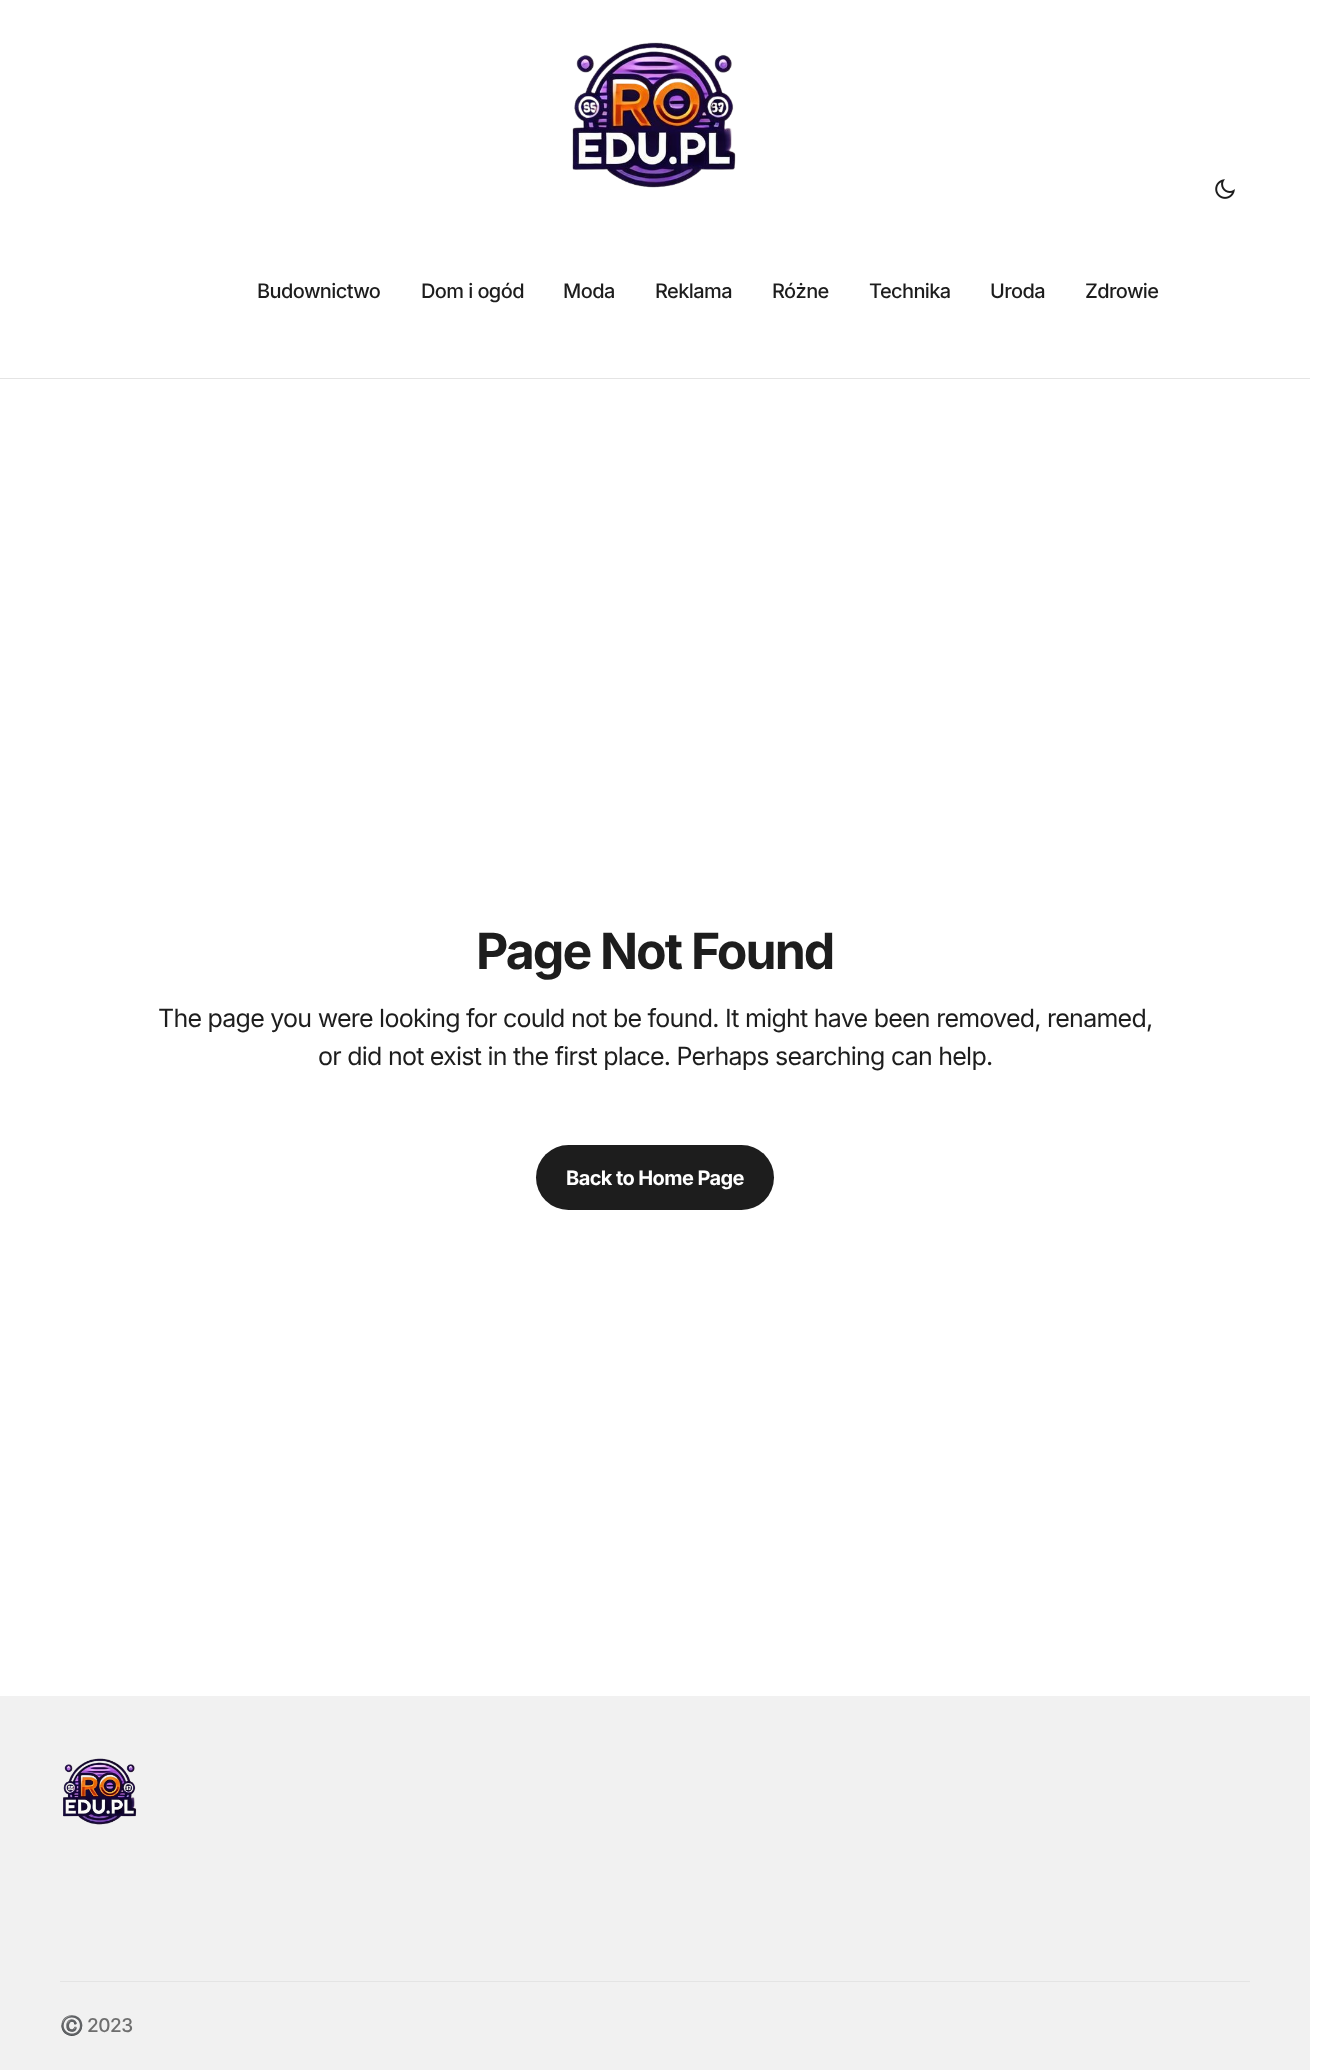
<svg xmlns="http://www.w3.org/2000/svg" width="1328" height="2070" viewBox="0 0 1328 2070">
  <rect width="100%" height="100%" fill="rgb(255,255,255)"/>
  <image x="572" y="42" width="164" height="146" href="pic1.png"/>
  <image x="1215" y="179" width="20" height="20" href="pic2.png"/>
  <g font-family="Inter" font-size="20" font-weight="500" letter-spacing="-0.6" fill="rgb(29,29,29)">
    <text x="257" y="298">Budownictwo</text>
    <text x="421" y="298">Dom i ogód</text>
    <text x="563" y="298">Moda</text>
    <text x="655" y="298">Reklama</text>
    <text x="772" y="298">Różne</text>
    <text x="869" y="298">Technika</text>
    <text x="990" y="298">Uroda</text>
    <text x="1085" y="298">Zdrowie</text>
  </g>
  <rect x="0" y="378" width="1310" height="1" fill="rgb(228,228,228)"/>
  <text x="476" y="969" font-family="Inter" font-size="50" font-weight="bold" letter-spacing="-2" fill="rgb(29,29,29)">Page Not Found</text>
  <g font-family="Inter" font-size="25" letter-spacing="-0.75" fill="rgb(29,29,29)">
    <text x="158" y="1027">The page you were looking for could not be found. It might have been removed, renamed,</text>
    <text x="318" y="1065">or did not exist in the first place. Perhaps searching can help.</text>
  </g>
  <rect x="536" y="1145" width="238" height="65" rx="32.5" fill="rgb(29,29,29)"/>
  <text x="566" y="1185" font-family="Inter" font-size="20" font-weight="bold" letter-spacing="-0.6" fill="rgb(255,255,255)">Back to Home Page</text>
  <rect x="0" y="1696" width="1310" height="374" fill="rgb(241,241,241)"/>
  <image x="63" y="1758" width="74" height="67" href="pic3.png"/>
  <rect x="60" y="1981" width="1190" height="1" fill="rgb(228,228,228)"/>
  <text x="60" y="2032" font-family="Noto Color Emoji" font-size="19" letter-spacing="-0.5" fill="rgb(110,110,110)">©️</text>
  <text x="87" y="2032" font-family="Inter" font-size="19" font-weight="500" letter-spacing="-0.5" fill="rgb(110,110,110)">2023</text>
</svg>
